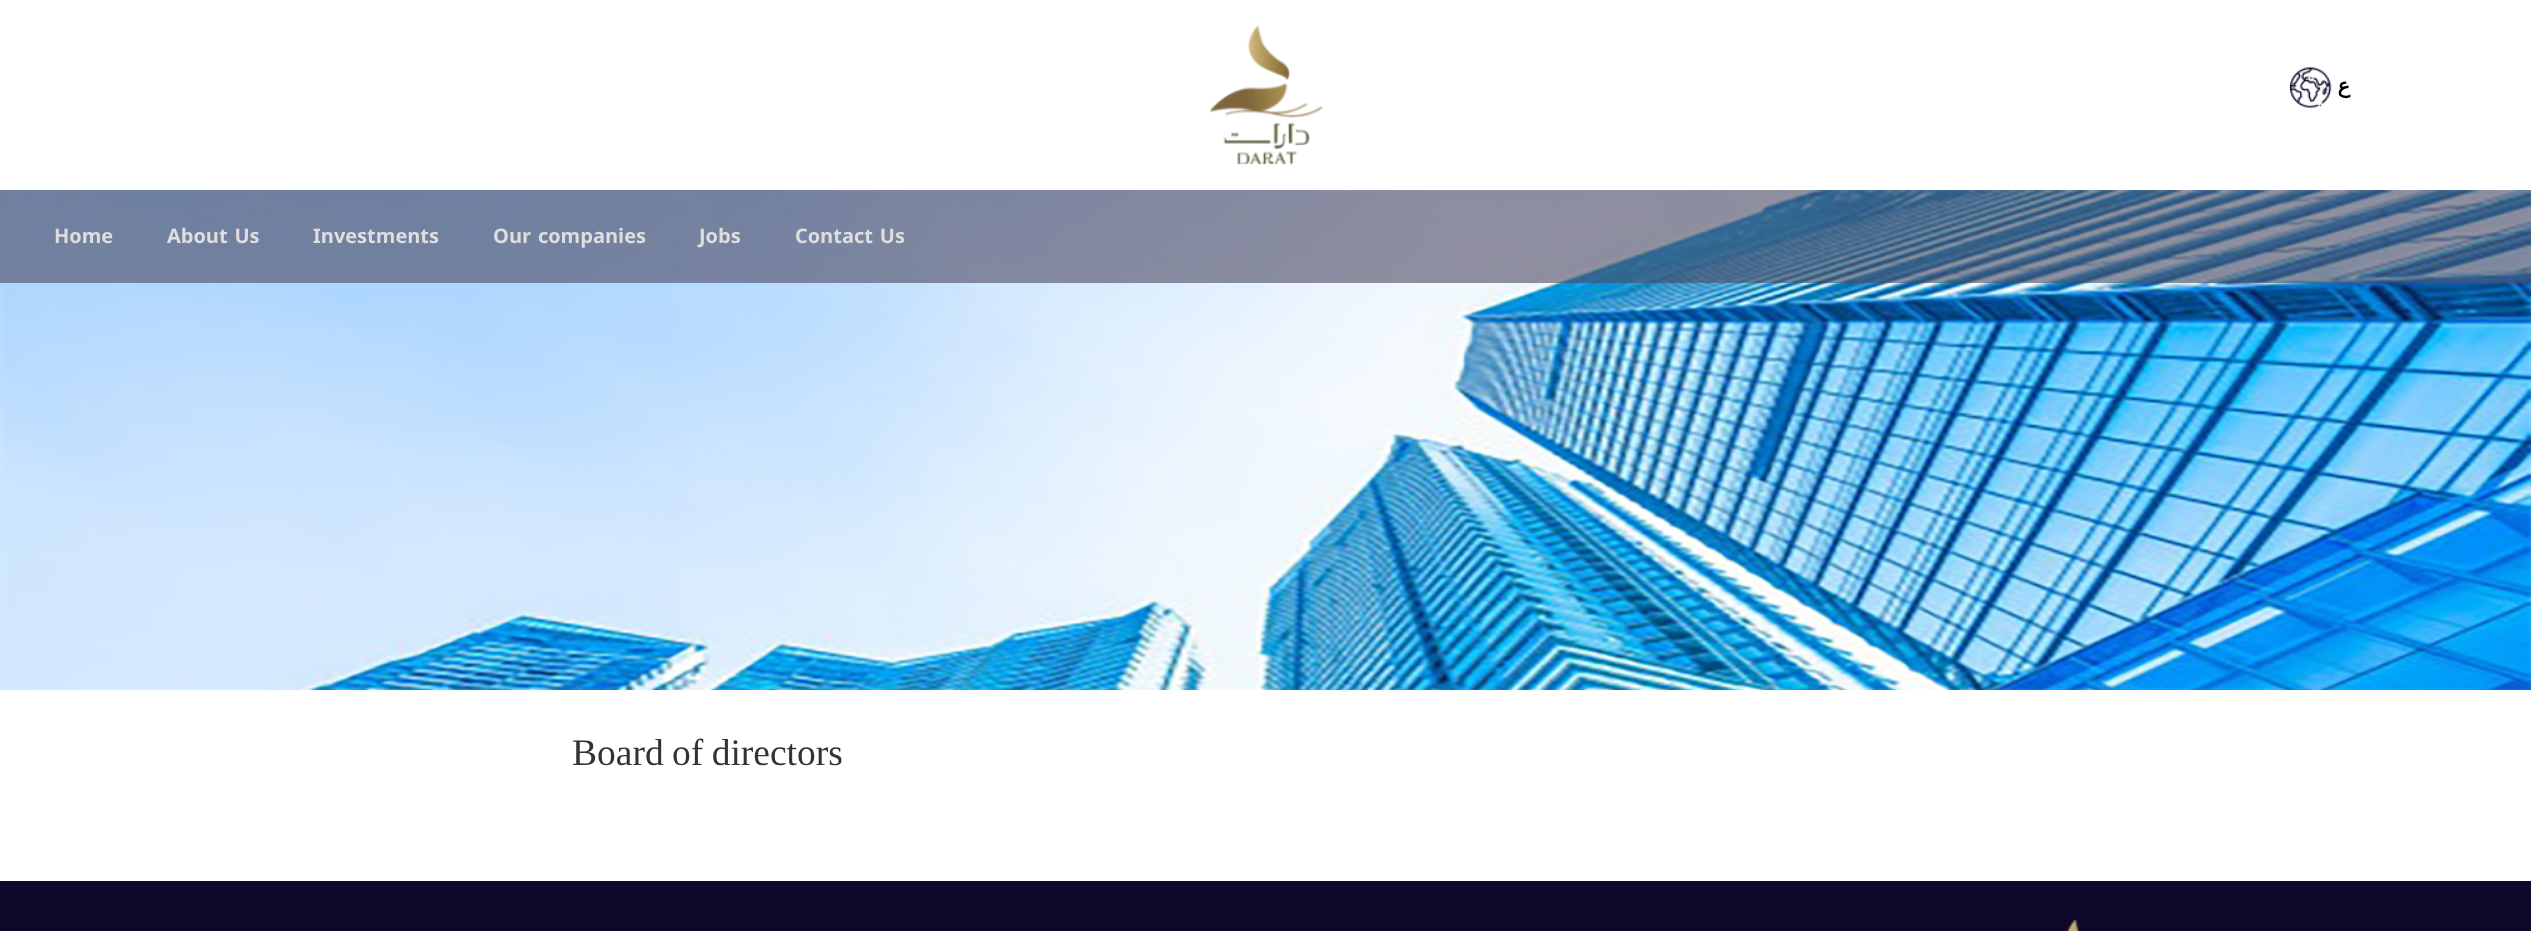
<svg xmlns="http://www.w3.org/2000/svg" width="2531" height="931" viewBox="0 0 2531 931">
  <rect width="100%" height="100%" fill="rgb(255,255,255)"/>
  <image x="1210" y="26" width="113" height="139" href="pic1.png"/>
  <image x="2290" y="67" width="42" height="41" href="pic2.png"/>
  <text x="2350" y="93" font-family="DejaVu Sans" font-size="21" font-weight="bold" direction="rtl" fill="rgb(0,0,0)">ع</text>
  <image x="0" y="190" width="2531" height="500" href="pic3.png"/>
  <rect x="0" y="190" width="2531" height="93" fill="rgba(78,76,99,0.61)"/>
  <g font-family="Noto Kufi Arabic" font-size="20" font-weight="bold" fill="rgb(222,222,222)">
    <text x="54" y="243">Home</text>
    <text x="167" y="243">About Us</text>
    <text x="313" y="243">Investments</text>
    <text x="493" y="243">Our companies</text>
    <text x="699" y="243">Jobs</text>
    <text x="795" y="243">Contact Us</text>
  </g>
  <text x="572" y="765" word-spacing="-1" font-family="Liberation Serif" font-size="37.5" fill="rgb(51,51,51)">Board of directors</text>
  <rect x="0" y="881" width="2531" height="50" fill="rgb(14,9,43)"/>
  <image x="2066" y="919" width="14" height="12" href="pic4.png"/>
</svg>
